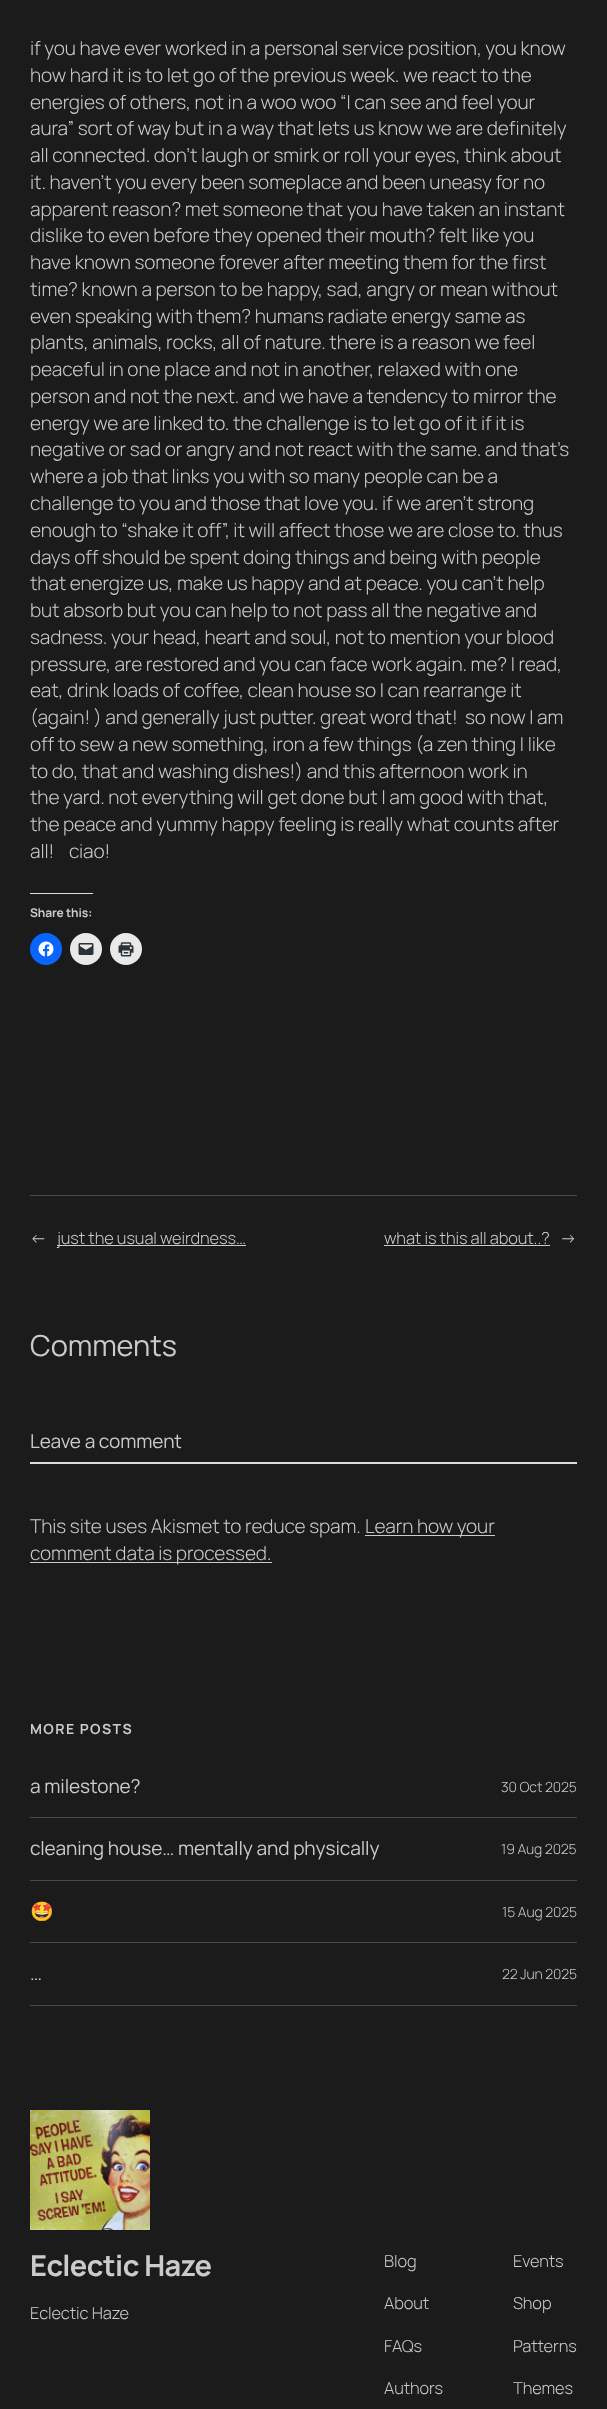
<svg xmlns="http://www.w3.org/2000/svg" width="607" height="2409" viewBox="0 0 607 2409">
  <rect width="100%" height="100%" fill="rgb(27,27,27)"/>
  <g font-family="Manrope" font-size="19.1" font-weight="300" letter-spacing="-0.1" fill="rgb(203,203,203)">
    <text xml:space="preserve"><tspan x="30" y="55">if you have ever worked in a personal service position, you know</tspan><tspan x="30" y="82">how hard it is to let go of the previous week. we react to the</tspan><tspan x="30" y="109">energies of others, not in a woo woo “I can see and feel your</tspan><tspan x="30" y="135">aura” sort of way but in a way that lets us know we are definitely</tspan><tspan x="30" y="162">all connected. don’t laugh or smirk or roll your eyes, think about</tspan><tspan x="30" y="189">it. haven’t you every been someplace and been uneasy for no</tspan><tspan x="30" y="216">apparent reason? met someone that you have taken an instant</tspan><tspan x="30" y="242">dislike to even before they opened their mouth? felt like you</tspan><tspan x="30" y="269">have known someone forever after meeting them for the first</tspan><tspan x="30" y="296">time? known a person to be happy, sad, angry or mean without</tspan><tspan x="30" y="323">even speaking with them? humans radiate energy same as</tspan><tspan x="30" y="349">plants, animals, rocks, all of nature. there is a reason we feel</tspan><tspan x="30" y="376">peaceful in one place and not in another, relaxed with one</tspan><tspan x="30" y="403">person and not the next. and we have a tendency to mirror the</tspan><tspan x="30" y="430">energy we are linked to. the challenge is to let go of it if it is</tspan><tspan x="30" y="456">negative or sad or angry and not react with the same. and that’s</tspan><tspan x="30" y="483">where a job that links you with so many people can be a</tspan><tspan x="30" y="510">challenge to you and those that love you. if we aren’t strong</tspan><tspan x="30" y="537">enough to “shake it off”, it will affect those we are close to. thus</tspan><tspan x="30" y="564">days off should be spent doing things and being with people</tspan><tspan x="30" y="590">that energize us, make us happy and at peace. you can’t help</tspan><tspan x="30" y="617">but absorb but you can help to not pass all the negative and</tspan><tspan x="30" y="644">sadness. your head, heart and soul, not to mention your blood</tspan><tspan x="30" y="671">pressure, are restored and you can face work again. me? I read,</tspan><tspan x="30" y="697">eat, drink loads of coffee, clean house so I can rearrange it</tspan><tspan x="30" y="724">(again! ) and generally just putter. great word that!  so now I am</tspan><tspan x="30" y="751">off to sew a new something, iron a few things (a zen thing I like</tspan><tspan x="30" y="778">to do, that and washing dishes!) and this afternoon work in</tspan><tspan x="30" y="804">the yard. not everything will get done but I am good with that,</tspan><tspan x="30" y="831">the peace and yummy happy feeling is really what counts after</tspan><tspan x="30" y="858">all!    ciao!</tspan></text>
  </g>
  <rect x="30" y="893" width="63" height="1" fill="rgb(220,220,222)"/>
  <text x="30" y="917" font-family="Manrope" font-size="12" font-weight="bold" letter-spacing="-0.1" fill="rgb(203,203,203)">Share this:</text>
  <circle cx="46" cy="949" r="16" fill="rgb(8,102,255)"/>
  <image x="38" y="941" width="16" height="16" href="pic1.png"/>
  <circle cx="86" cy="949" r="16" fill="rgb(233,233,233)"/>
  <image x="78" y="943" width="16" height="12" href="pic2.png"/>
  <circle cx="126" cy="949" r="16" fill="rgb(233,233,233)"/>
  <image x="118" y="942" width="16" height="15" href="pic3.png"/>
  <rect x="30" y="1195" width="547" height="1" fill="rgb(73,73,73)"/>
  <text x="30" y="1244" font-family="Manrope" font-size="16.5" font-weight="300" letter-spacing="-0.1" fill="rgb(203,203,203)">←</text>
  <rect x="57" y="1245" width="189" height="1" fill="rgb(203,203,203)"/>
  <g font-family="Manrope" font-size="16.5" font-weight="300" letter-spacing="-0.1" fill="rgb(203,203,203)">
    <text x="57" y="1244">just the usual weirdness…</text>
    <text x="384" y="1244">what is this all about..?</text>
  </g>
  <rect x="384" y="1245" width="166" height="1" fill="rgb(203,203,203)"/>
  <text x="560" y="1244" font-family="Manrope" font-size="16.5" font-weight="300" letter-spacing="-0.1" fill="rgb(203,203,203)">→</text>
  <text x="30" y="1356" font-family="Manrope" font-size="29" letter-spacing="-0.1" fill="rgb(203,203,203)">Comments</text>
  <text x="30" y="1448" font-family="Manrope" font-size="19.1" letter-spacing="-0.1" fill="rgb(203,203,203)">Leave a comment</text>
  <rect x="30" y="1462" width="547" height="2" fill="rgb(220,220,222)"/>
  <text x="30" y="1533" font-family="Manrope" font-size="19.1" font-weight="300" letter-spacing="-0.1" fill="rgb(203,203,203)">This site uses Akismet to reduce spam.</text>
  <rect x="365" y="1535" width="130" height="1" fill="rgb(203,203,203)"/>
  <text x="365" y="1533" font-family="Manrope" font-size="19.1" font-weight="300" letter-spacing="-0.1" fill="rgb(203,203,203)">Learn how your</text>
  <rect x="30" y="1562" width="242" height="1" fill="rgb(203,203,203)"/>
  <text x="30" y="1560" font-family="Manrope" font-size="19.1" font-weight="300" letter-spacing="-0.1" fill="rgb(203,203,203)">comment data is processed.</text>
  <text x="30" y="1734" font-family="Manrope" font-size="14" font-weight="bold" letter-spacing="1.4" fill="rgb(203,203,203)">MORE POSTS</text>
  <rect x="30" y="1817" width="547" height="1" fill="rgb(73,73,73)"/>
  <text x="30" y="1793" font-family="Manrope" font-size="19.1" letter-spacing="-0.1" fill="rgb(203,203,203)">a milestone?</text>
  <text x="501" y="1792" font-family="Manrope" font-size="14" font-weight="300" letter-spacing="-0.1" fill="rgb(203,203,203)">30 Oct 2025</text>
  <rect x="30" y="1880" width="547" height="1" fill="rgb(73,73,73)"/>
  <text x="30" y="1855" font-family="Manrope" font-size="19.1" letter-spacing="-0.1" fill="rgb(203,203,203)">cleaning house… mentally and physically</text>
  <text x="501" y="1854" font-family="Manrope" font-size="14" font-weight="300" letter-spacing="-0.1" fill="rgb(203,203,203)">19 Aug 2025</text>
  <rect x="30" y="1942" width="547" height="1" fill="rgb(73,73,73)"/>
  <text x="30" y="1918" font-family="Noto Color Emoji" font-size="19.1" letter-spacing="-0.1" fill="rgb(203,203,203)">🤩</text>
  <text x="502" y="1917" font-family="Manrope" font-size="14" font-weight="300" letter-spacing="-0.1" fill="rgb(203,203,203)">15 Aug 2025</text>
  <rect x="30" y="2005" width="547" height="1" fill="rgb(73,73,73)"/>
  <text x="30" y="1980" font-family="Manrope" font-size="19.1" letter-spacing="-0.1" fill="rgb(203,203,203)">…</text>
  <text x="502" y="1979" font-family="Manrope" font-size="14" font-weight="300" letter-spacing="-0.1" fill="rgb(203,203,203)">22 Jun 2025</text>
  <image x="30" y="2110" width="120" height="120" href="pic4.png"/>
  <text x="30" y="2276" font-family="Manrope" font-size="29" font-weight="bold" letter-spacing="-0.5" fill="rgb(203,203,203)">Eclectic Haze</text>
  <g font-family="Manrope" font-size="16.5" font-weight="300" letter-spacing="-0.1" fill="rgb(203,203,203)">
    <text x="30" y="2319">Eclectic Haze</text>
    <text x="384" y="2267">Blog</text>
    <text x="384" y="2309">About</text>
    <text x="384" y="2352">FAQs</text>
    <text x="384" y="2394">Authors</text>
    <text x="513" y="2267">Events</text>
    <text x="513" y="2309">Shop</text>
    <text x="513" y="2352">Patterns</text>
    <text x="513" y="2394">Themes</text>
  </g>
</svg>
